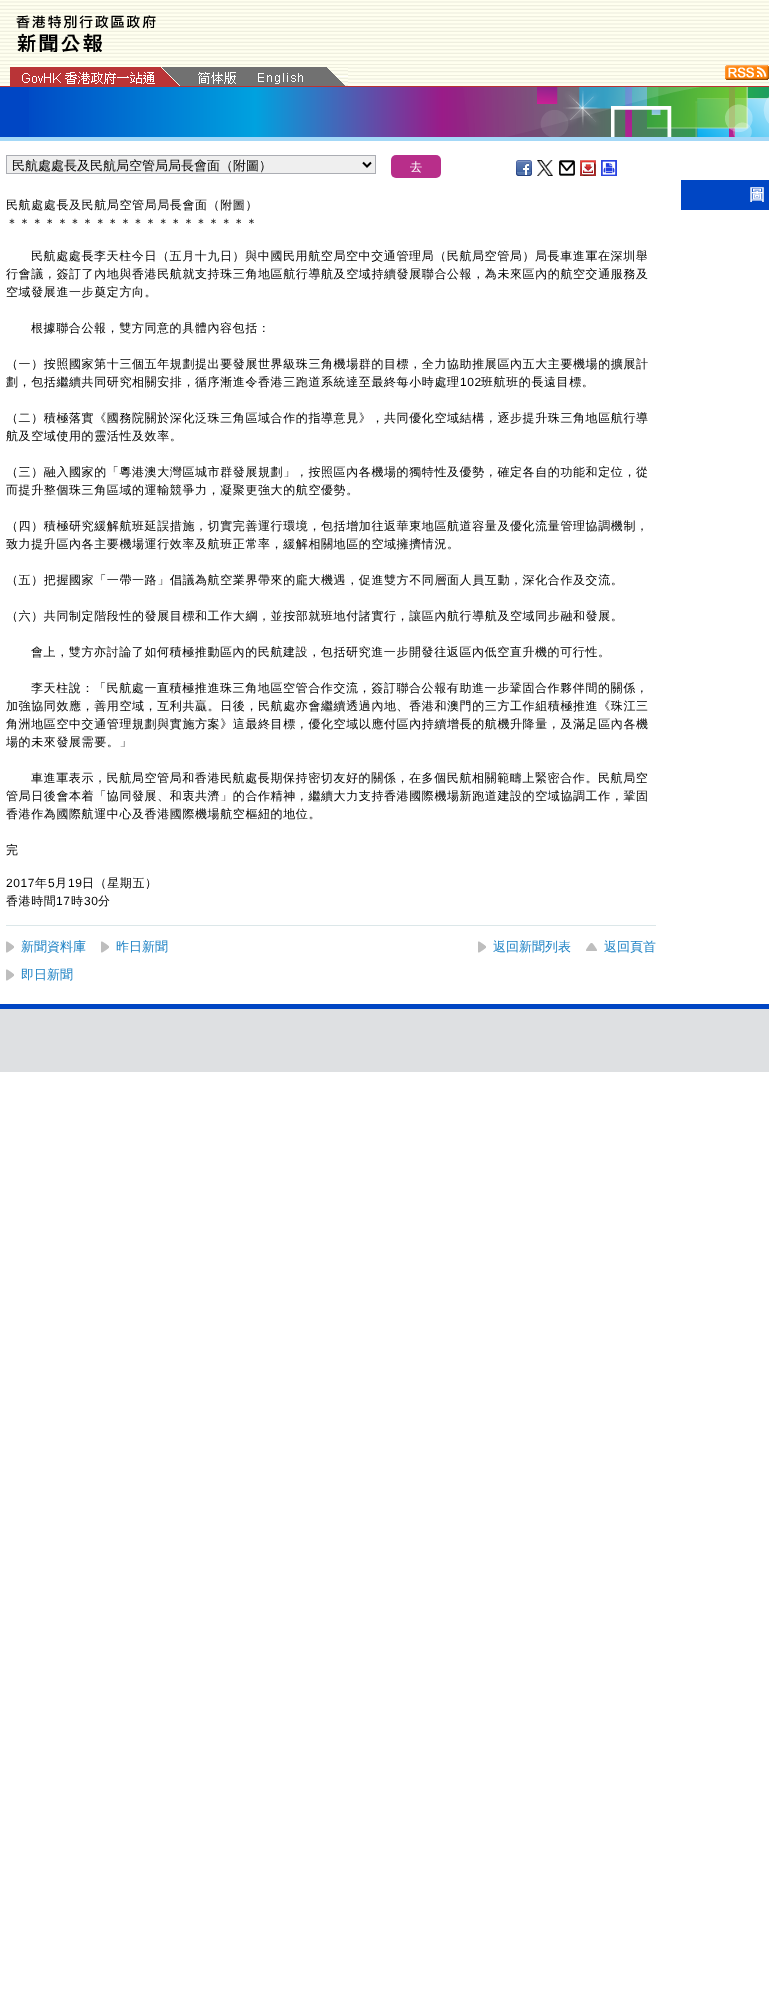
<svg xmlns="http://www.w3.org/2000/svg" width="769" height="1993" viewBox="0 0 769 1993">
  <rect width="100%" height="100%" fill="rgb(255,255,255)"/>
  <image x="0" y="0" width="769" height="86" href="pic1.png"/>
  <rect x="0" y="86" width="769" height="1" fill="rgb(187,51,51)"/>
  <image x="16" y="15" width="140" height="37" href="pic2.png"/>
  <rect x="180" y="67" width="147" height="19" fill="rgb(113,113,113)"/>
  <image x="10" y="67" width="170" height="19" href="pic3.png"/>
  <image x="22" y="72" width="133" height="12" href="pic4.png"/>
  <image x="198" y="72" width="38" height="12" href="pic5.png"/>
  <image x="327" y="67" width="21" height="19" href="pic6.png"/>
  <image x="258" y="73" width="45" height="11" href="pic7.png"/>
  <image x="725" y="65" width="44" height="15" href="pic8.png"/>
  <rect x="0" y="87" width="29" height="50" fill="rgb(0,70,196)"/>
  <image x="29" y="87" width="740" height="50" href="pic9.png"/>
  <rect x="0" y="137" width="769" height="4" fill="rgb(163,216,247)"/>
  <rect x="0" y="1004" width="769" height="5" fill="rgb(0,70,196)"/>
  <rect x="6.5" y="155.5" width="369" height="18" fill="rgb(239,239,239)" stroke="rgb(171,173,179)"/>
  <path d="M363 162.5L367 166.5L371 162.5" fill="none" stroke="rgb(0,0,0)" stroke-width="2"/>
  <text x="12" y="170" font-family="WenQuanYi Zen Hei" font-size="13" font-weight="500" fill="rgb(0,0,0)">民航處處長及民航局空管局局長會面（附圖）</text>
  <rect x="391" y="155" width="50" height="23" rx="5" fill="rgb(184,46,138)"/>
  <text x="410" y="171" font-family="WenQuanYi Zen Hei" font-size="12" font-weight="500" fill="rgb(255,255,255)">去</text>
  <image x="516" y="160" width="16" height="16" href="pic10.png"/>
  <image x="537" y="160" width="16" height="16" href="pic11.png"/>
  <image x="559" y="160" width="16" height="16" href="pic12.png"/>
  <image x="580" y="160" width="16" height="16" href="pic13.png"/>
  <image x="601" y="160" width="16" height="16" href="pic14.png"/>
  <g font-family="WenQuanYi Zen Hei" font-size="12" font-weight="500" letter-spacing="0.6" fill="rgb(0,0,0)">
    <text>
      <tspan x="6" y="209">民航處處長及民航局空管局局長會面（附圖）</tspan>
      <tspan x="6" y="227">＊＊＊＊＊＊＊＊＊＊＊＊＊＊＊＊＊＊＊＊</tspan>
    </text>
    <text x="31" y="260">民航處處長李天柱今日（五月十九日）與中國民用航空局空中交通管理局（民航局空管局）局長車進軍在深圳舉</text>
    <text>
      <tspan x="6" y="278">行會議，簽訂了內地與香港民航就支持珠三角地區航行導航及空域持續發展聯合公報，為未來區內的航空交通服務及</tspan>
      <tspan x="6" y="296">空域發展進一步奠定方向。</tspan>
    </text>
    <text x="31" y="332">根據聯合公報，雙方同意的具體內容包括：</text>
    <text>
      <tspan x="6" y="368">（一）按照國家第十三個五年規劃提出要發展世界級珠三角機場群的目標，全力協助推展區內五大主要機場的擴展計</tspan>
      <tspan x="6" y="386">劃，包括繼續共同研究相關安排，循序漸進令香港三跑道系統達至最終每小時處理</tspan>
    </text>
  </g>
  <text x="460" y="386" font-family="Liberation Sans" font-size="12" letter-spacing="0.6" fill="rgb(0,0,0)">102</text>
  <g font-family="WenQuanYi Zen Hei" font-size="12" font-weight="500" letter-spacing="0.6" fill="rgb(0,0,0)">
    <text x="481" y="386">班航班的長遠目標。</text>
    <text>
      <tspan x="6" y="422">（二）積極落實《國務院關於深化泛珠三角區域合作的指導意見》，共同優化空域結構，逐步提升珠三角地區航行導</tspan>
      <tspan x="6" y="440">航及空域使用的靈活性及效率。</tspan>
    </text>
    <text>
      <tspan x="6" y="476">（三）融入國家的「粵港澳大灣區城市群發展規劃」，按照區內各機場的獨特性及優勢，確定各自的功能和定位，從</tspan>
      <tspan x="6" y="494">而提升整個珠三角區域的運輸競爭力，凝聚更強大的航空優勢。</tspan>
    </text>
    <text>
      <tspan x="6" y="530">（四）積極研究緩解航班延誤措施，切實完善運行環境，包括增加往返華東地區航道容量及優化流量管理協調機制，</tspan>
      <tspan x="6" y="548">致力提升區內各主要機場運行效率及航班正常率，緩解相關地區的空域擁擠情況。</tspan>
    </text>
    <text x="6" y="584">（五）把握國家「一帶一路」倡議為航空業界帶來的龐大機遇，促進雙方不同層面人員互動，深化合作及交流。</text>
    <text x="6" y="620">（六）共同制定階段性的發展目標和工作大綱，並按部就班地付諸實行，讓區內航行導航及空域同步融和發展。</text>
    <text x="31" y="656">會上，雙方亦討論了如何積極推動區內的民航建設，包括研究進一步開發往返區內低空直升機的可行性。</text>
    <text x="31" y="692">李天柱說：「民航處一直積極推進珠三角地區空管合作交流，簽訂聯合公報有助進一步鞏固合作夥伴間的關係，</text>
    <text>
      <tspan x="6" y="710">加強協同效應，善用空域，互利共贏。日後，民航處亦會繼續透過內地、香港和澳門的三方工作組積極推進《珠江三</tspan>
      <tspan x="6" y="728">角洲地區空中交通管理規劃與實施方案》這最終目標，優化空域以應付區內持續增長的航機升降量，及滿足區內各機</tspan>
      <tspan x="6" y="746">場的未來發展需要。」</tspan>
    </text>
    <text x="31" y="782">車進軍表示，民航局空管局和香港民航處長期保持密切友好的關係，在多個民航相關範疇上緊密合作。民航局空</text>
    <text>
      <tspan x="6" y="800">管局日後會本着「協同發展、和衷共濟」的合作精神，繼續大力支持香港國際機場新跑道建設的空域協調工作，鞏固</tspan>
      <tspan x="6" y="818">香港作為國際航運中心及香港國際機場航空樞紐的地位。</tspan>
    </text>
    <text x="6" y="854">完</text>
  </g>
  <text x="6" y="887" font-family="Liberation Sans" font-size="12" letter-spacing="0.6" fill="rgb(0,0,0)">2017</text>
  <text x="35" y="887" font-family="WenQuanYi Zen Hei" font-size="12" font-weight="500" letter-spacing="0.6" fill="rgb(0,0,0)">年</text>
  <text x="48" y="887" font-family="Liberation Sans" font-size="12" letter-spacing="0.6" fill="rgb(0,0,0)">5</text>
  <text x="55" y="887" font-family="WenQuanYi Zen Hei" font-size="12" font-weight="500" letter-spacing="0.6" fill="rgb(0,0,0)">月</text>
  <text x="68" y="887" font-family="Liberation Sans" font-size="12" letter-spacing="0.6" fill="rgb(0,0,0)">19</text>
  <g font-family="WenQuanYi Zen Hei" font-size="12" font-weight="500" letter-spacing="0.6" fill="rgb(0,0,0)">
    <text x="82" y="887">日（星期五）</text>
    <text x="6" y="905">香港時間</text>
  </g>
  <text x="56" y="905" font-family="Liberation Sans" font-size="12" letter-spacing="0.6" fill="rgb(0,0,0)">17</text>
  <text x="71" y="905" font-family="WenQuanYi Zen Hei" font-size="12" font-weight="500" letter-spacing="0.6" fill="rgb(0,0,0)">時</text>
  <text x="84" y="905" font-family="Liberation Sans" font-size="12" letter-spacing="0.6" fill="rgb(0,0,0)">30</text>
  <text x="98" y="905" font-family="WenQuanYi Zen Hei" font-size="12" font-weight="500" letter-spacing="0.6" fill="rgb(0,0,0)">分</text>
  <rect x="6" y="925" width="650" height="1" fill="rgb(220,231,233)"/>
  <image x="6" y="941" width="8" height="12" href="pic15.png"/>
  <text x="21" y="951" font-family="WenQuanYi Zen Hei" font-size="13" font-weight="500" fill="rgb(32,131,197)">新聞資料庫</text>
  <image x="101" y="941" width="8" height="12" href="pic15.png"/>
  <text x="116" y="951" font-family="WenQuanYi Zen Hei" font-size="13" font-weight="500" fill="rgb(32,131,197)">昨日新聞</text>
  <image x="478" y="941" width="8" height="12" href="pic15.png"/>
  <text x="493" y="951" font-family="WenQuanYi Zen Hei" font-size="13" font-weight="500" fill="rgb(32,131,197)">返回新聞列表</text>
  <image x="586" y="943" width="11" height="8" href="pic16.png"/>
  <text x="604" y="951" font-family="WenQuanYi Zen Hei" font-size="13" font-weight="500" fill="rgb(32,131,197)">返回頁首</text>
  <image x="6" y="969" width="8" height="12" href="pic15.png"/>
  <text x="21" y="979" font-family="WenQuanYi Zen Hei" font-size="13" font-weight="500" fill="rgb(32,131,197)">即日新聞</text>
  <rect x="681" y="180" width="88" height="30" fill="rgb(0,70,196)"/>
  <text x="749" y="200" font-family="WenQuanYi Zen Hei" font-size="16" font-weight="bold" letter-spacing="0.6" fill="rgb(255,255,255)">圖</text>
  <rect x="0" y="1009" width="769" height="63" fill="rgb(222,224,226)"/>
</svg>
